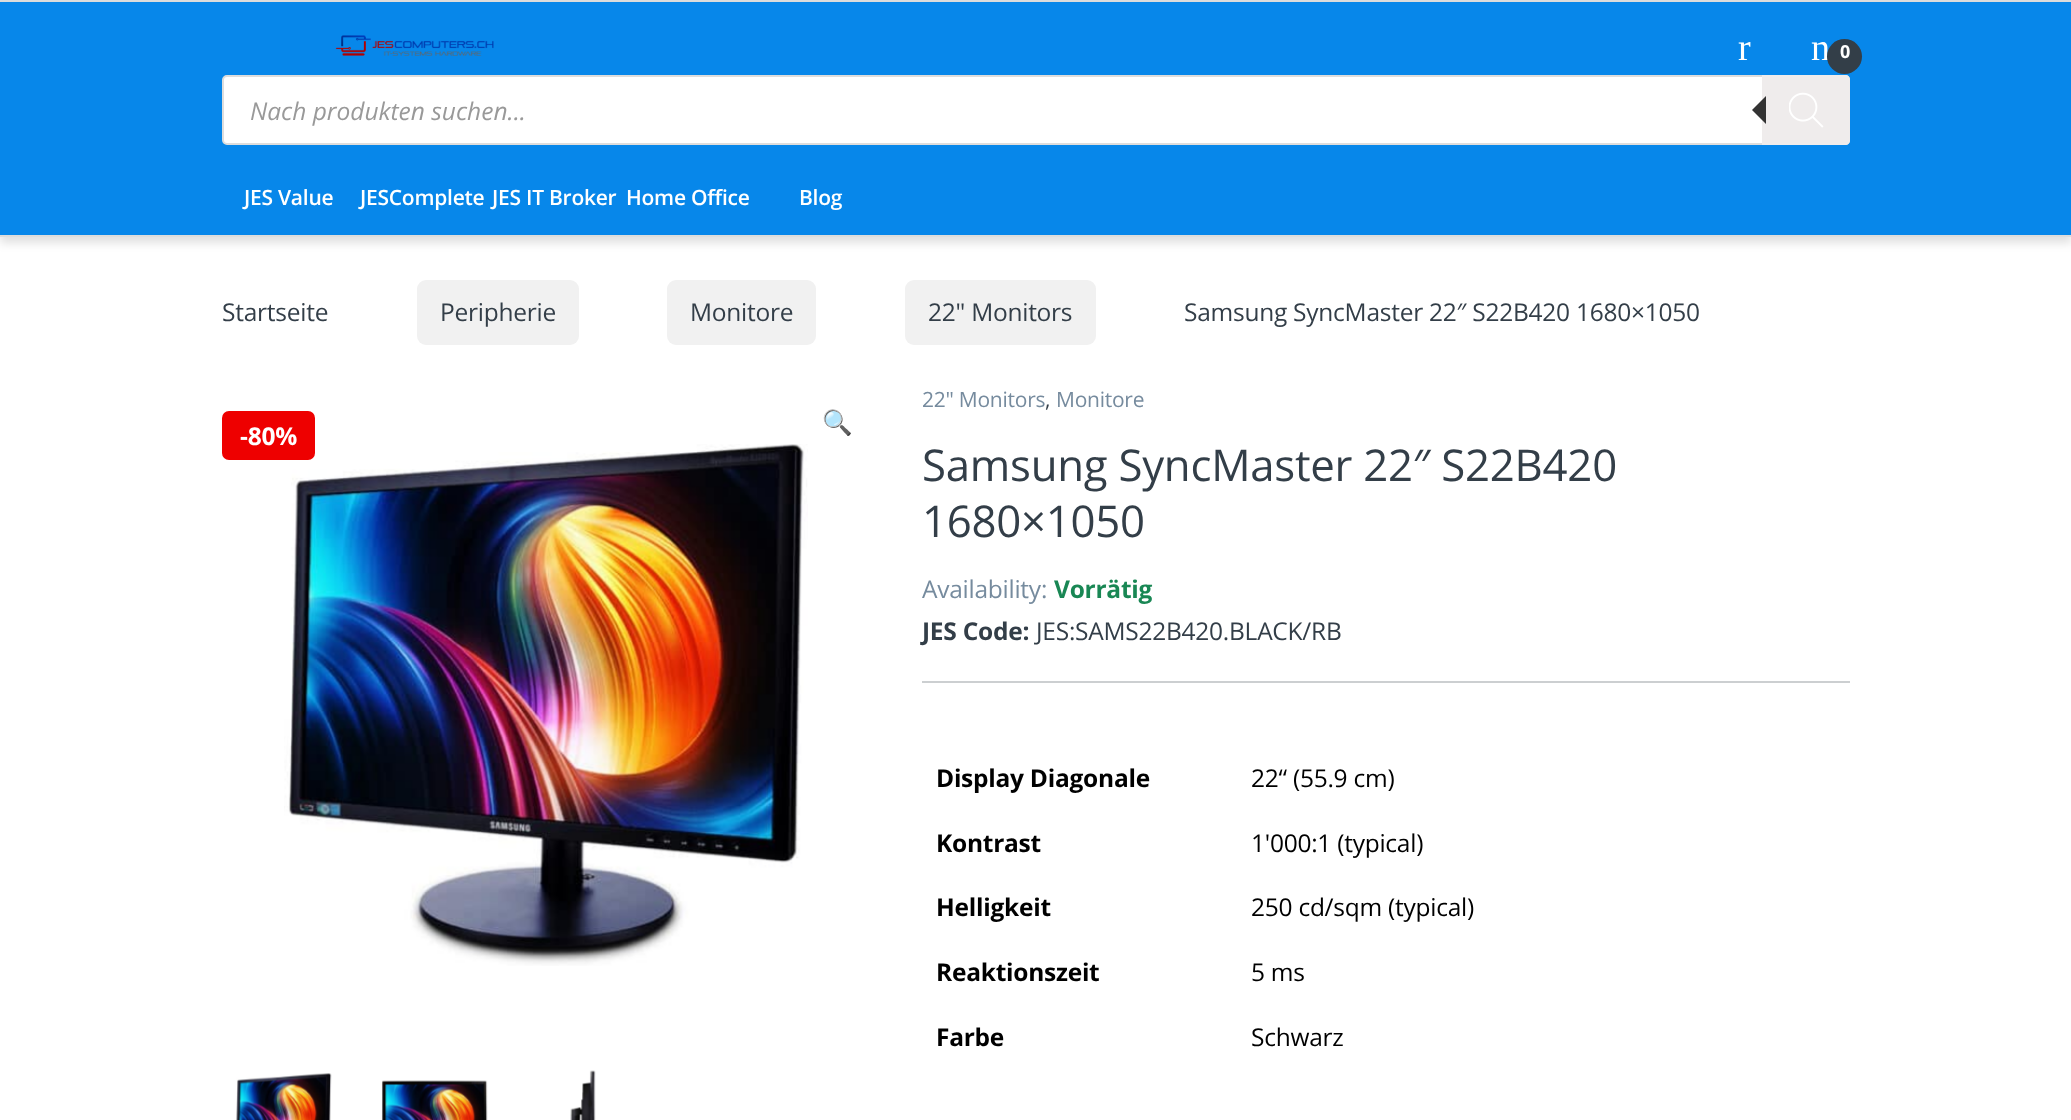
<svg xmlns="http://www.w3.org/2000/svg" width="2071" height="1120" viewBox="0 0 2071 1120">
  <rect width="100%" height="100%" fill="rgb(255,255,255)"/>
  <rect x="0" y="0" width="2071" height="2" fill="rgb(221,221,221)"/>
  <rect x="0" y="9" width="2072" height="234" fill="rgba(0,0,0,0.12)" filter="blur(5px)"/>
  <rect x="0" y="235" width="2071" height="2" fill="rgb(221,221,221)"/>
  <rect x="0" y="2" width="2071" height="233" fill="rgb(7,135,234)"/>
  <image x="335" y="35" width="159" height="21" href="pic1.png"/>
  <g font-family="Liberation Serif" font-size="38" letter-spacing="-0.25" fill="rgb(255,255,255)">
    <text x="1738" y="60">r</text>
    <text x="1811" y="60">n</text>
  </g>
  <circle cx="1844.5" cy="56.5" r="17.5" fill="rgb(51,62,72)"/>
  <text x="1840" y="58" font-family="Open Sans" font-size="18" font-weight="bold" letter-spacing="-0.25" fill="rgb(255,255,255)">0</text>
  <rect x="223" y="76" width="1626" height="68" rx="4" fill="rgb(255,255,255)" stroke="rgb(221,221,221)" stroke-width="2"/>
  <text x="250" y="120" font-family="Open Sans" font-size="24.5" font-style="italic" fill="rgb(153,153,153)">Nach produkten suchen...</text>
  <path d="M1762 75H1846C1848 75 1850 77 1850 79V141C1850 143 1848 145 1846 145H1762Z" fill="rgb(239,236,236)"/>
  <path d="M1766 96V124L1752 110Z" fill="rgb(51,51,51)"/>
  <image x="1789" y="92" width="35" height="36" href="pic2.png"/>
  <g font-family="Open Sans" font-size="21" font-weight="600" letter-spacing="-0.25" fill="rgb(255,255,255)">
    <text x="244" y="205">JES Value</text>
    <text x="360" y="205">JESComplete</text>
    <text x="492" y="205">JES IT Broker</text>
    <text x="626" y="205">Home Office</text>
    <text x="799" y="205">Blog</text>
  </g>
  <text x="222" y="321" font-family="Open Sans" font-size="24.5" letter-spacing="-0.25" fill="rgb(51,62,72)">Startseite</text>
  <rect x="417" y="280" width="162" height="65" rx="9" fill="rgb(241,241,241)"/>
  <text x="440" y="321" font-family="Open Sans" font-size="24.5" letter-spacing="-0.25" fill="rgb(51,62,72)">Peripherie</text>
  <rect x="667" y="280" width="149" height="65" rx="9" fill="rgb(241,241,241)"/>
  <text x="690" y="321" font-family="Open Sans" font-size="24.5" letter-spacing="-0.25" fill="rgb(51,62,72)">Monitore</text>
  <rect x="905" y="280" width="191" height="65" rx="9" fill="rgb(241,241,241)"/>
  <g font-family="Open Sans" font-size="24.5" letter-spacing="-0.25" fill="rgb(51,62,72)">
    <text x="928" y="321">22" Monitors</text>
    <text x="1184" y="321">Samsung SyncMaster 22″ S22B420 1680×1050</text>
  </g>
  <image x="284" y="444" width="524" height="522" href="pic3.png"/>
  <rect x="222" y="411" width="93" height="49" rx="7" fill="rgb(238,0,0)"/>
  <text x="240" y="445" font-family="Open Sans" font-size="24.5" font-weight="bold" letter-spacing="-0.25" fill="rgb(255,255,255)">-80%</text>
  <text x="822" y="431" font-family="Noto Color Emoji" font-size="24.5" letter-spacing="-0.25" fill="rgb(51,62,72)">🔍</text>
  <image x="236" y="1073" width="96" height="47" href="pic4.png"/>
  <image x="381" y="1080" width="107" height="40" href="pic5.png"/>
  <image x="570" y="1070" width="26" height="50" href="pic6.png"/>
  <text x="922" y="407" font-family="Open Sans" font-size="21" letter-spacing="-0.25" fill="rgb(118,139,158)">22" Monitors</text>
  <text x="1045" y="407" font-family="Open Sans" font-size="21" letter-spacing="-0.25" fill="rgb(51,62,72)">,</text>
  <text x="1056" y="407" font-family="Open Sans" font-size="21" letter-spacing="-0.25" fill="rgb(118,139,158)">Monitore</text>
  <g font-family="Open Sans" font-size="43.75" letter-spacing="-0.25" fill="rgb(51,62,72)">
    <text>
      <tspan x="922" y="481">Samsung SyncMaster 22″ S22B420</tspan>
      <tspan x="922" y="537">1680×1050</tspan>
    </text>
  </g>
  <text x="922" y="598" font-family="Open Sans" font-size="24.5" letter-spacing="-0.25" fill="rgb(118,139,158)">Availability:</text>
  <text x="1054" y="598" font-family="Open Sans" font-size="24.5" font-weight="bold" letter-spacing="-0.25" fill="rgb(25,135,84)">Vorrätig</text>
  <text x="922" y="640" font-family="Open Sans" font-size="24.5" font-weight="bold" letter-spacing="-0.25" fill="rgb(51,62,72)">JES Code:</text>
  <text x="1036" y="640" font-family="Open Sans" font-size="24.5" letter-spacing="-0.25" fill="rgb(51,62,72)">JES:SAMS22B420.BLACK/RB</text>
  <rect x="922" y="681" width="928" height="2" fill="rgb(204,207,209)"/>
  <text x="936" y="787" font-family="Open Sans" font-size="24.5" font-weight="bold" letter-spacing="-0.25" fill="rgb(0,0,0)">Display Diagonale</text>
  <text x="1251" y="787" font-family="Open Sans" font-size="24.5" letter-spacing="-0.25" fill="rgb(0,0,0)">22“ (55.9 cm)</text>
  <text x="936" y="852" font-family="Open Sans" font-size="24.5" font-weight="bold" letter-spacing="-0.25" fill="rgb(0,0,0)">Kontrast</text>
  <text x="1251" y="852" font-family="Open Sans" font-size="24.5" letter-spacing="-0.25" fill="rgb(0,0,0)">1'000:1 (typical)</text>
  <text x="936" y="916" font-family="Open Sans" font-size="24.5" font-weight="bold" letter-spacing="-0.25" fill="rgb(0,0,0)">Helligkeit</text>
  <text x="1251" y="916" font-family="Open Sans" font-size="24.5" letter-spacing="-0.25" fill="rgb(0,0,0)">250 cd/sqm (typical)</text>
  <text x="936" y="981" font-family="Open Sans" font-size="24.5" font-weight="bold" letter-spacing="-0.25" fill="rgb(0,0,0)">Reaktionszeit</text>
  <text x="1251" y="981" font-family="Open Sans" font-size="24.5" letter-spacing="-0.25" fill="rgb(0,0,0)">5 ms</text>
  <text x="936" y="1046" font-family="Open Sans" font-size="24.5" font-weight="bold" letter-spacing="-0.25" fill="rgb(0,0,0)">Farbe</text>
  <text x="1251" y="1046" font-family="Open Sans" font-size="24.5" letter-spacing="-0.25" fill="rgb(0,0,0)">Schwarz</text>
</svg>
